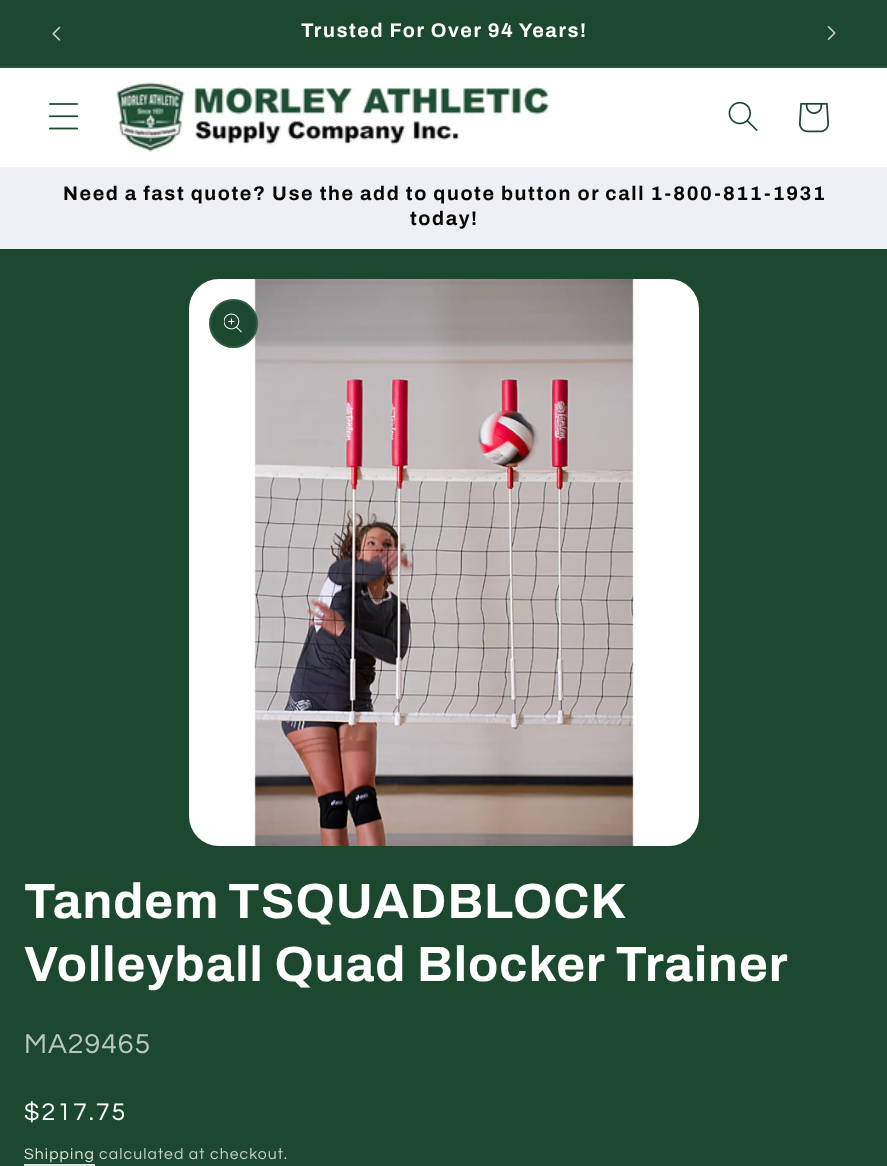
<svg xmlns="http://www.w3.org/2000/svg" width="887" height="1166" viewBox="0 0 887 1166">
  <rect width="100%" height="100%" fill="rgb(239,240,245)"/>
  <rect x="0" y="0" width="887" height="66" fill="rgb(27,72,46)"/>
  <rect x="0" y="66" width="887" height="2" fill="rgb(45,87,63)"/>
  <image x="52" y="26" width="9" height="15" href="pic1.png"/>
  <text x="301" y="37" font-family="Archivo" font-size="19.8" font-weight="bold" letter-spacing="1.58" fill="rgb(255,255,255)">Trusted For Over 94 Years!</text>
  <image x="827" y="26" width="9" height="14" href="pic2.png"/>
  <rect x="0" y="68" width="887" height="99" fill="rgb(255,255,255)"/>
  <image x="48" y="103" width="31" height="27" href="pic3.png"/>
  <image x="110" y="82" width="440" height="70" href="pic4.png"/>
  <image x="728" y="101" width="30" height="30" href="pic5.png"/>
  <image x="799" y="102" width="30" height="31" href="pic6.png"/>
  <g font-family="Archivo" font-size="19.8" font-weight="bold" letter-spacing="1.58" fill="rgb(7,7,7)">
    <text x="63" y="200">Need a fast quote? Use the add to quote button or call 1-800-811-1931</text>
    <text x="410" y="225">today!</text>
  </g>
  <rect x="0" y="249" width="887" height="917" fill="rgb(27,72,46)"/>
  <image x="189" y="279" width="510" height="567" href="pic7.png"/>
  <circle cx="233.5" cy="323.5" r="24.5" fill="rgb(27,72,46)"/>
  <circle cx="233.5" cy="323.5" r="23.5" fill="none" stroke="rgba(255,255,255,0.1)" stroke-width="2"/>
  <image x="224" y="313" width="18" height="20" href="pic8.png"/>
  <g font-family="Archivo" font-size="49.5" font-weight="bold" letter-spacing="1" fill="rgb(255,255,255)">
    <text>
      <tspan x="24" y="918" word-spacing="-2">Tandem TSQUADBLOCK</tspan>
      <tspan x="24" y="981">Volleyball Quad Blocker Trainer</tspan>
    </text>
  </g>
  <text x="24" y="1053" font-family="Questrial" font-size="28.5" letter-spacing="1" fill="rgb(187,200,192)">MA29465</text>
  <text x="24" y="1120" font-family="Questrial" font-size="25" letter-spacing="2" fill="rgb(255,255,255)">$217.75</text>
  <text x="24" y="1159" font-family="Questrial" font-size="15.75" letter-spacing="1.1" fill="rgb(221,228,224)">Shipping</text>
  <rect x="24" y="1164" width="71" height="2" fill="rgb(221,228,224)"/>
  <text x="99" y="1159" font-family="Questrial" font-size="15.75" letter-spacing="1.1" fill="rgb(198,209,203)">calculated at checkout.</text>
</svg>
